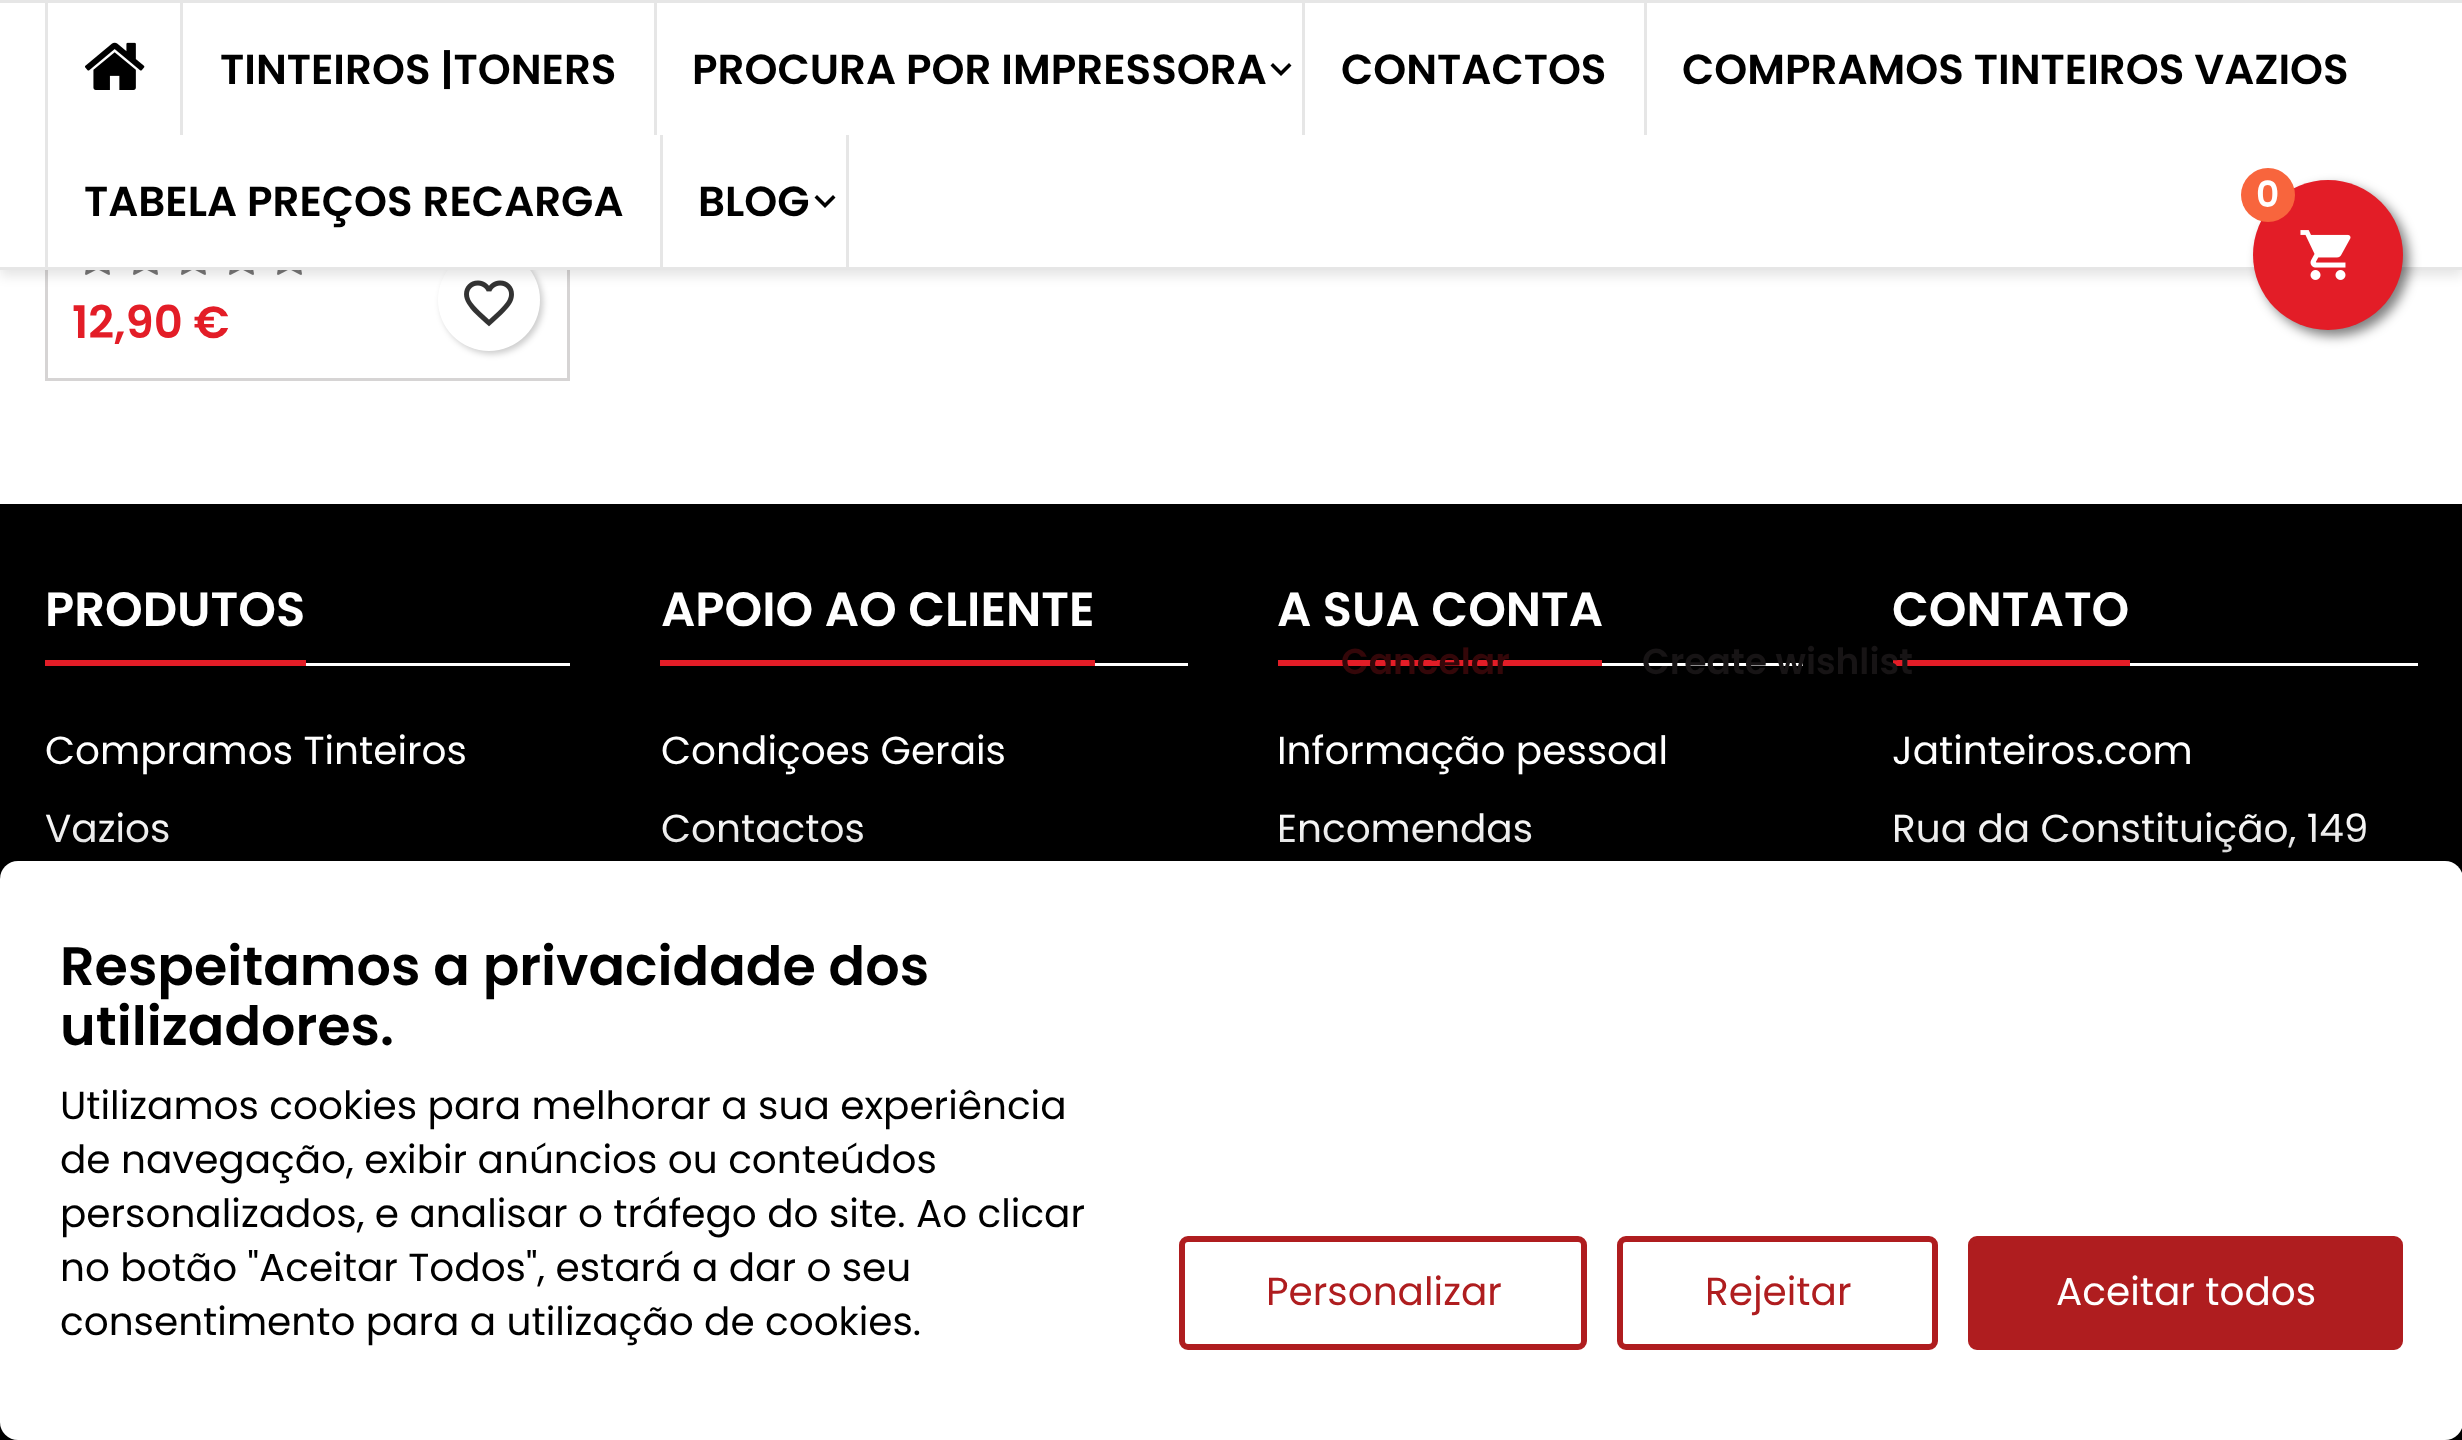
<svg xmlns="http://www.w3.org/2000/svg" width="2462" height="1440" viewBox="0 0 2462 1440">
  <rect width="100%" height="100%" fill="rgb(255,255,255)"/>
  <rect x="567" y="270" width="3" height="111" fill="rgb(214,212,212)"/>
  <rect x="45" y="378" width="525" height="3" fill="rgb(214,212,212)"/>
  <rect x="45" y="270" width="3" height="111" fill="rgb(214,212,212)"/>
  <image x="85" y="270" width="25" height="5" href="pic3.png"/>
  <image x="133" y="270" width="25" height="5" href="pic3.png"/>
  <image x="181" y="270" width="25" height="5" href="pic3.png"/>
  <image x="229" y="270" width="25" height="5" href="pic3.png"/>
  <image x="277" y="270" width="25" height="5" href="pic3.png"/>
  <rect x="441" y="252" width="102" height="102" rx="51" fill="rgba(0,0,0,0.2)" filter="blur(3px)"/>
  <circle cx="489" cy="300" r="51" fill="rgb(255,255,255)"/>
  <image x="464" y="280" width="50" height="47" href="pic4.png"/>
  <rect x="0" y="6" width="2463" height="270" fill="rgba(0,0,0,0.1)" filter="blur(6px)"/>
  <rect x="0" y="3" width="2462" height="264" fill="rgb(255,255,255)"/>
  <rect x="0" y="0" width="2462" height="3" fill="rgb(230,230,230)"/>
  <rect x="0" y="267" width="2462" height="3" fill="rgb(230,230,230)"/>
  <rect x="45" y="3" width="3" height="264" fill="rgb(230,230,230)"/>
  <image x="85" y="42" width="60" height="48" href="pic1.png"/>
  <rect x="180" y="3" width="3" height="132" fill="rgb(230,230,230)"/>
  <text x="220" y="84" font-family="Poppins" font-size="42" font-weight="600" fill="rgb(0,0,0)">TINTEIROS |TONERS</text>
  <rect x="654" y="3" width="3" height="132" fill="rgb(230,230,230)"/>
  <text x="692" y="84" font-family="Poppins" font-size="42" font-weight="600" fill="rgb(0,0,0)">PROCURA POR IMPRESSORA</text>
  <path d="M1289 63L1291.5 65.5L1281 76L1270.5 65.5L1273 63L1281 71Z" fill="rgb(0,0,0)"/>
  <rect x="1302" y="3" width="3" height="132" fill="rgb(230,230,230)"/>
  <text x="1341" y="84" font-family="Poppins" font-size="42" font-weight="600" fill="rgb(0,0,0)">CONTACTOS</text>
  <rect x="1644" y="3" width="3" height="132" fill="rgb(230,230,230)"/>
  <g font-family="Poppins" font-size="42" font-weight="600" fill="rgb(0,0,0)">
    <text x="1682" y="84">COMPRAMOS TINTEIROS VAZIOS</text>
    <text x="84" y="216">TABELA PREÇOS RECARGA</text>
  </g>
  <rect x="846" y="135" width="3" height="132" fill="rgb(230,230,230)"/>
  <rect x="660" y="135" width="3" height="132" fill="rgb(230,230,230)"/>
  <text x="698" y="216" font-family="Poppins" font-size="42" font-weight="600" fill="rgb(0,0,0)">BLOG</text>
  <path d="M833 195L835.5 197.5L825 208L814.5 197.5L817 195L825 203Z" fill="rgb(0,0,0)"/>
  <rect x="2259" y="186" width="150" height="150" rx="75" fill="rgba(0,0,0,0.5)" filter="blur(6px)"/>
  <circle cx="2328" cy="255" r="75" fill="rgb(227,29,39)"/>
  <circle cx="2268" cy="195" r="27" fill="rgb(248,101,61)"/>
  <text x="2256" y="207" font-family="Poppins" font-size="36" font-weight="600" fill="rgb(255,255,255)">0</text>
  <image x="2300" y="230" width="51" height="50" href="pic2.png"/>
  <text x="72" y="338" font-family="Poppins" font-size="45" font-weight="600" fill="rgb(227,29,39)">12,90 €</text>
  <rect x="0" y="504" width="2462" height="936" fill="rgb(0,0,0)"/>
  <rect x="306" y="663" width="264" height="3" fill="rgb(255,255,255)"/>
  <rect x="45" y="660" width="261" height="6" fill="rgb(227,29,39)"/>
  <text x="45" y="626" font-family="Poppins" font-size="48" font-weight="600" fill="rgb(255,255,255)">PRODUTOS</text>
  <g font-family="Poppins" font-size="39" fill="rgb(255,255,255)">
    <text x="45" y="764">Compramos Tinteiros</text>
    <text x="45" y="842">Vazios</text>
  </g>
  <rect x="1095" y="663" width="93" height="3" fill="rgb(255,255,255)"/>
  <rect x="660" y="660" width="435" height="6" fill="rgb(227,29,39)"/>
  <text x="661" y="626" font-family="Poppins" font-size="48" font-weight="600" fill="rgb(255,255,255)">APOIO AO CLIENTE</text>
  <g font-family="Poppins" font-size="39" fill="rgb(255,255,255)">
    <text x="661" y="764">Condiçoes Gerais</text>
    <text x="661" y="842">Contactos</text>
  </g>
  <rect x="1602" y="663" width="201" height="3" fill="rgb(255,255,255)"/>
  <rect x="1278" y="660" width="324" height="6" fill="rgb(227,29,39)"/>
  <text x="1277" y="626" font-family="Poppins" font-size="48" font-weight="600" fill="rgb(255,255,255)">A SUA CONTA</text>
  <g font-family="Poppins" font-size="39" fill="rgb(255,255,255)">
    <text x="1277" y="764">Informação pessoal</text>
    <text x="1277" y="842">Encomendas</text>
  </g>
  <rect x="2130" y="663" width="288" height="3" fill="rgb(255,255,255)"/>
  <rect x="1893" y="660" width="237" height="6" fill="rgb(227,29,39)"/>
  <text x="1892" y="626" font-family="Poppins" font-size="48" font-weight="600" fill="rgb(255,255,255)">CONTATO</text>
  <g font-family="Poppins" font-size="39" fill="rgb(255,255,255)">
    <text x="1892" y="764">Jatinteiros.com</text>
    <text x="1892" y="842">Rua da Constituição, 149</text>
  </g>
  <text x="1341" y="674" font-family="Poppins" font-size="36" font-weight="600" fill="rgb(52,7,9)">Cancelar</text>
  <text x="1642" y="674" font-family="Poppins" font-size="36" font-weight="600" fill="rgb(23,20,21)">Create wishlist</text>
  <rect x="0" y="861" width="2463" height="579" rx="18" fill="rgba(0,0,0,0.4)" filter="blur(30px)"/>
  <rect x="0" y="861" width="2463" height="579" rx="18" fill="rgb(255,255,255)"/>
  <g font-family="Poppins" font-size="54" font-weight="600" fill="rgb(0,0,0)">
    <text>
      <tspan x="60" y="985">Respeitamos a privacidade dos</tspan>
      <tspan x="60" y="1045">utilizadores.</tspan>
    </text>
  </g>
  <g font-family="Poppins" font-size="39" fill="rgb(0,0,0)">
    <text>
      <tspan x="60" y="1119">Utilizamos cookies para melhorar a sua experiência</tspan>
      <tspan x="60" y="1173">de navegação, exibir anúncios ou conteúdos</tspan>
      <tspan x="60" y="1227">personalizados, e analisar o tráfego do site. Ao clicar</tspan>
      <tspan x="60" y="1281">no botão "Aceitar Todos", estará a dar o seu</tspan>
      <tspan x="60" y="1335">consentimento para a utilização de cookies.</tspan>
    </text>
  </g>
  <rect x="1182" y="1239" width="402" height="108" rx="6" fill="none" stroke="rgb(175,29,31)" stroke-width="6"/>
  <text x="1266" y="1305" font-family="Poppins" font-size="39" fill="rgb(175,29,31)">Personalizar</text>
  <rect x="1620" y="1239" width="315" height="108" rx="6" fill="none" stroke="rgb(175,29,31)" stroke-width="6"/>
  <text x="1705" y="1305" font-family="Poppins" font-size="39" fill="rgb(175,29,31)">Rejeitar</text>
  <rect x="1971" y="1239" width="429" height="108" rx="6" fill="rgb(175,29,31)" stroke="rgb(175,29,31)" stroke-width="6"/>
  <text x="2056" y="1305" font-family="Poppins" font-size="39" fill="rgb(255,255,255)">Aceitar todos</text>
</svg>
